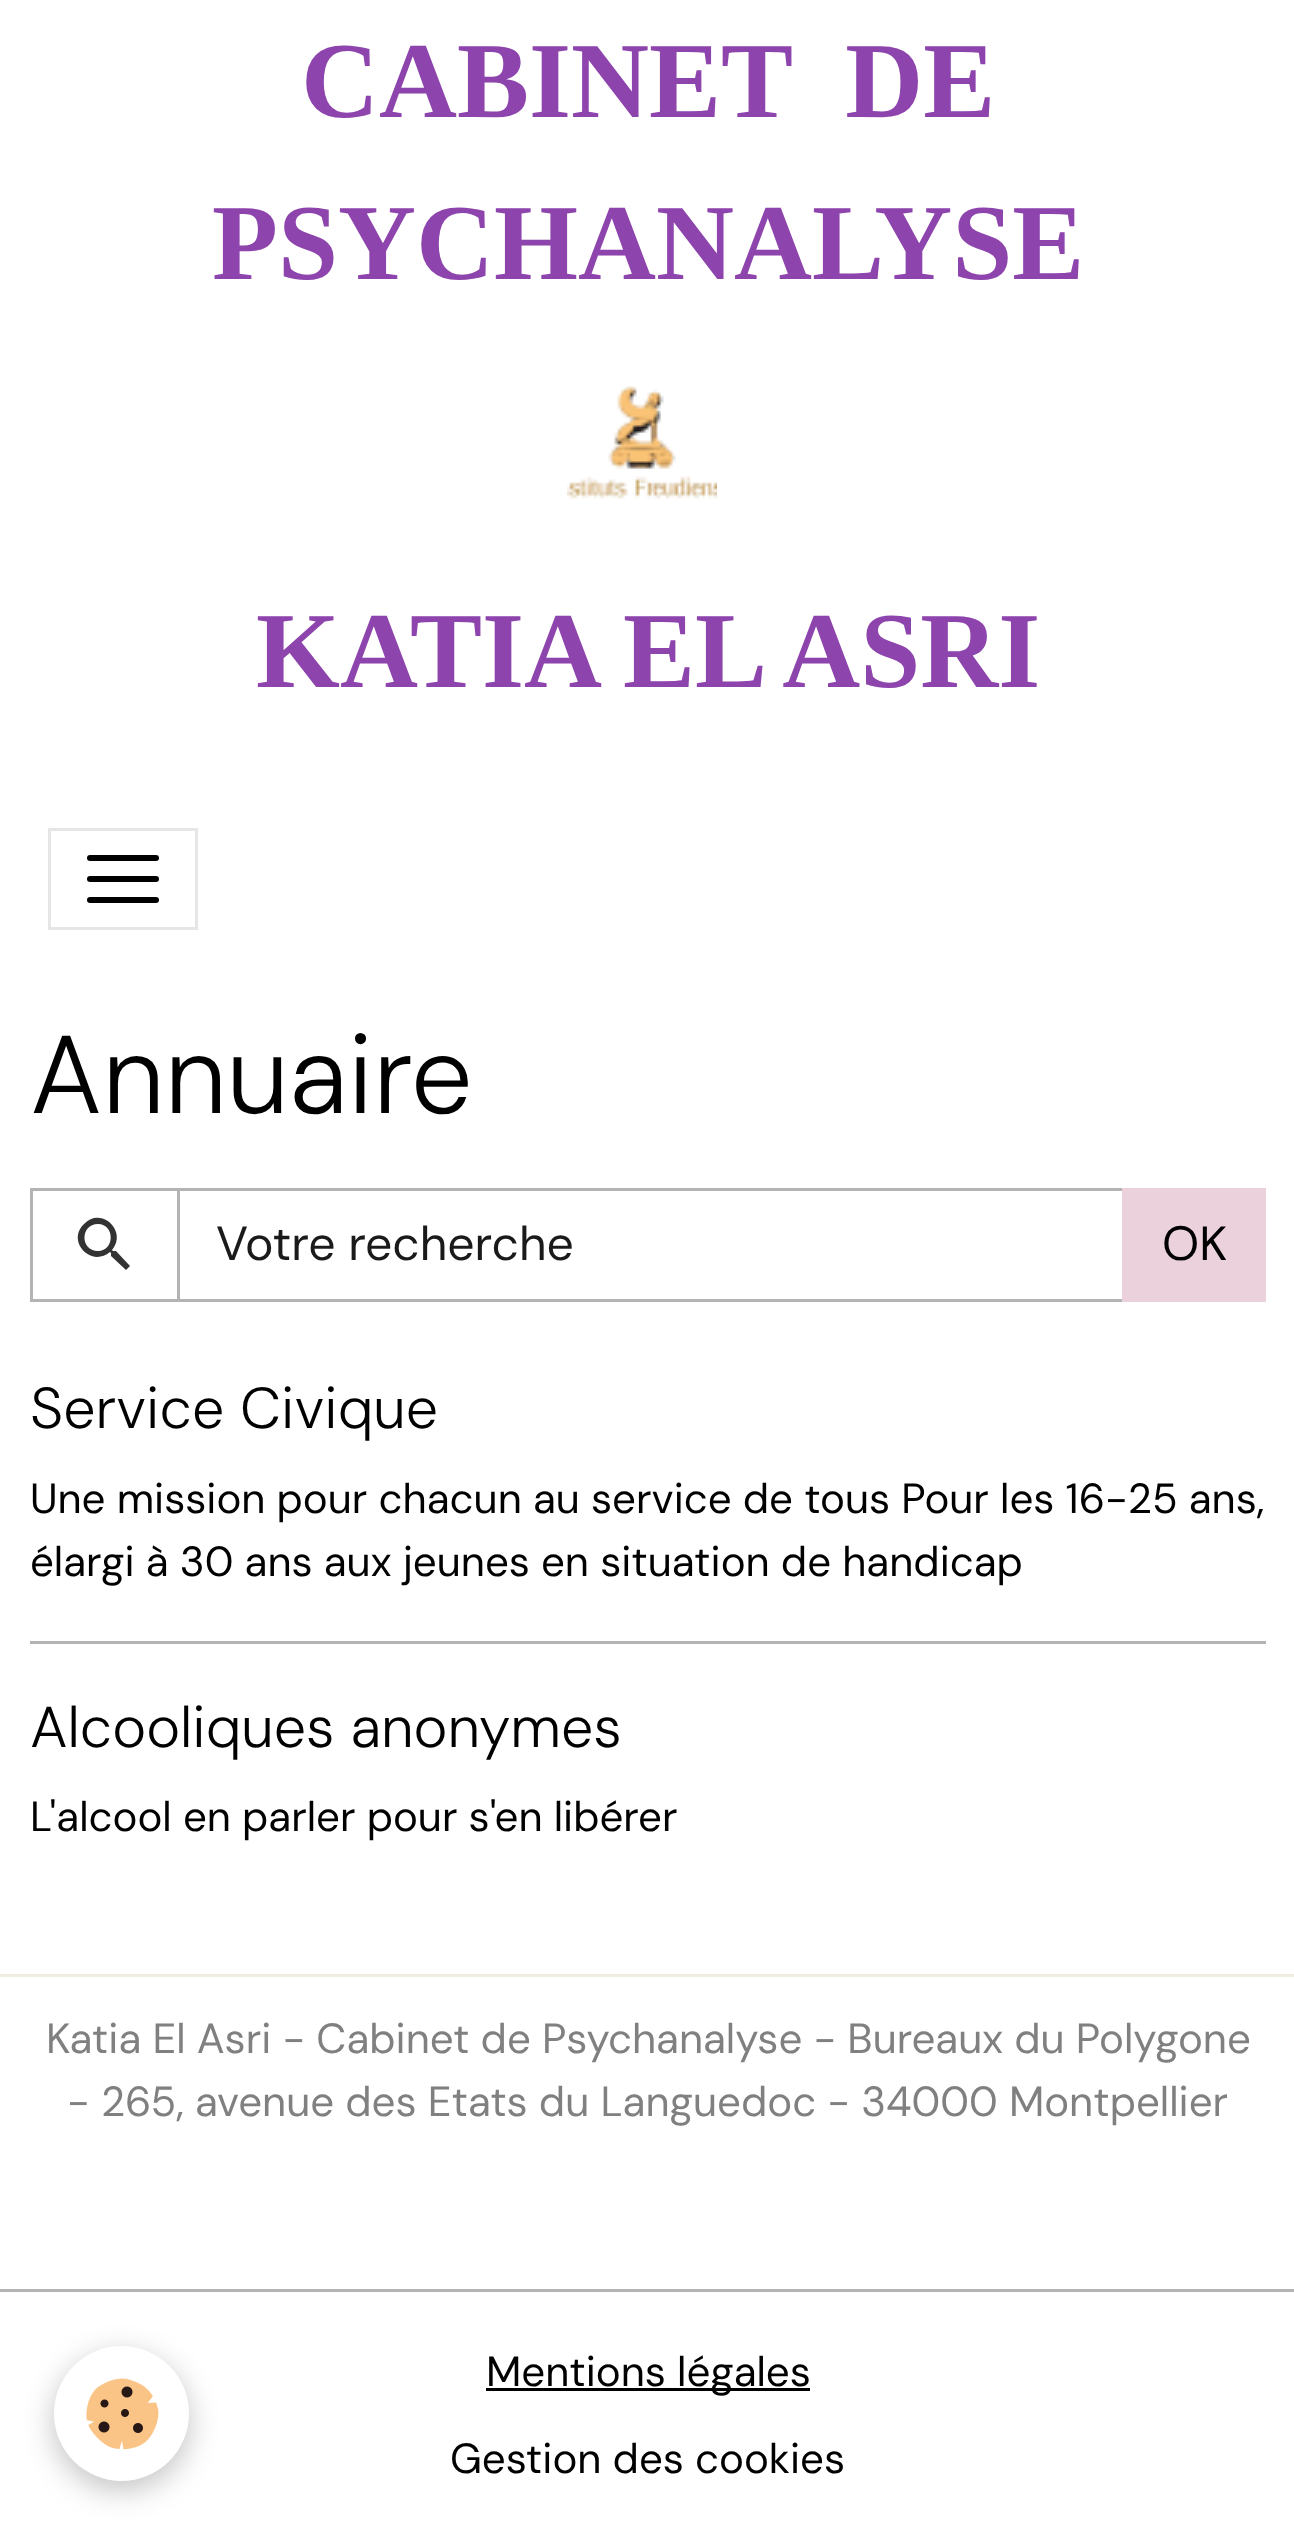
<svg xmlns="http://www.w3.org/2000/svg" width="1294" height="2533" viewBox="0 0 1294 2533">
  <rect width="100%" height="100%" fill="rgb(255,255,255)"/>
  <g font-family="Liberation Serif" font-size="108" font-weight="bold" fill="rgb(142,68,173)">
    <text x="301" y="117" xml:space="preserve">CABINET  DE</text>
    <text x="212" y="279">PSYCHANALYSE</text>
  </g>
  <image x="567" y="386" width="150" height="113" href="pic1.png"/>
  <text x="256" y="687" font-family="Liberation Serif" font-size="108" font-weight="bold" fill="rgb(142,68,173)">KATIA EL ASRI</text>
  <rect x="49.5" y="829.5" width="147" height="99" fill="none" stroke="rgb(230,230,230)" stroke-width="3"/>
  <rect x="87" y="855" width="72" height="6" rx="3" fill="rgb(0,0,0)"/>
  <rect x="87" y="876" width="72" height="6" rx="3" fill="rgb(0,0,0)"/>
  <rect x="87" y="897" width="72" height="6" rx="3" fill="rgb(0,0,0)"/>
  <text x="30" y="1113" font-family="DM Sans" font-size="110.5" font-weight="300" fill="rgb(0,0,0)">Annuaire</text>
  <rect x="31.5" y="1189.5" width="147" height="111" fill="none" stroke="rgb(179,179,179)" stroke-width="3"/>
  <path d="M116 1251L130 1266L126 1270L111 1256V1253L110 1252C91 1268 66 1241 84 1224C101 1206 128 1231 112 1250L113 1251ZM98 1251C115 1251 115 1224 98 1224C80 1224 80 1251 98 1251Z" fill="rgb(51,51,51)"/>
  <rect x="178.5" y="1189.5" width="945" height="111" fill="none" stroke="rgb(179,179,179)" stroke-width="3"/>
  <text x="216" y="1260" font-family="DM Sans" font-size="48" fill="rgb(26,26,26)">Votre recherche</text>
  <rect x="1122" y="1188" width="144" height="114" fill="rgb(234,209,220)"/>
  <text x="1162" y="1260" font-family="DM Sans" font-size="48" fill="rgb(0,0,0)">OK</text>
  <text x="30" y="1428" font-family="DM Sans" font-size="57.6" font-weight="300" fill="rgb(0,0,0)">Service Civique</text>
  <g font-family="DM Sans" font-size="42" fill="rgb(0,0,0)">
    <text>
      <tspan x="30" y="1513">Une mission pour chacun au service de tous Pour les 16-25 ans,</tspan>
      <tspan x="30" y="1576">élargi à 30 ans aux jeunes en situation de handicap</tspan>
    </text>
  </g>
  <rect x="30" y="1641" width="1236" height="3" fill="rgb(179,179,179)"/>
  <text x="30" y="1747" font-family="DM Sans" font-size="57.6" font-weight="300" fill="rgb(0,0,0)">Alcooliques anonymes</text>
  <text x="30" y="1831" font-family="DM Sans" font-size="42" fill="rgb(0,0,0)">L'alcool en parler pour s'en libérer</text>
  <rect x="0" y="1974" width="1294" height="3" fill="rgb(239,236,226)"/>
  <g font-family="DM Sans" font-size="42" fill="rgb(128,128,128)">
    <text x="46" y="2053">Katia El Asri - Cabinet de Psychanalyse - Bureaux du Polygone</text>
    <text x="67" y="2116">- 265, avenue des Etats du Languedoc - 34000 Montpellier</text>
  </g>
  <rect x="0" y="2289" width="1294" height="3" fill="rgb(179,179,179)"/>
  <rect x="486" y="2388" width="324" height="3" fill="rgb(0,0,0)"/>
  <g font-family="DM Sans" font-size="42" fill="rgb(0,0,0)">
    <text x="486" y="2386">Mentions légales</text>
    <text x="450" y="2473">Gestion des cookies</text>
  </g>
  <rect x="54" y="2355" width="135" height="135" rx="67.5" fill="rgba(0,0,0,0.24)" filter="blur(15px)"/>
  <circle cx="121.5" cy="2413.5" r="67.5" fill="rgb(255,255,255)"/>
  <image x="86" y="2378" width="73" height="72" href="pic2.png"/>
</svg>
